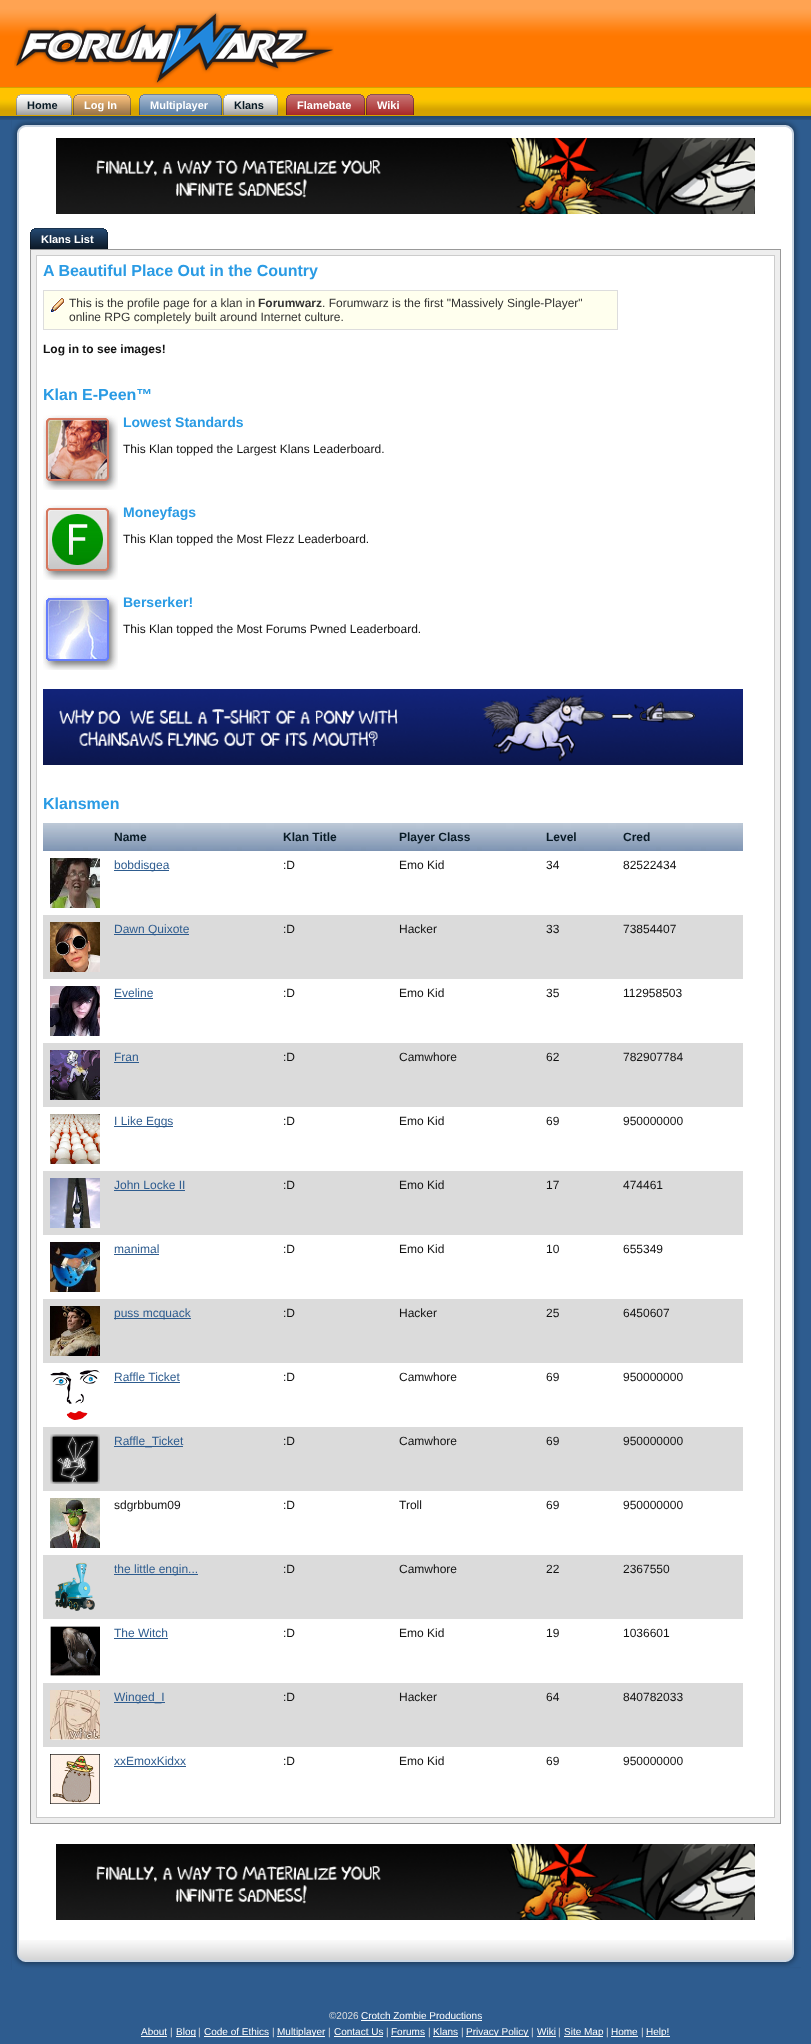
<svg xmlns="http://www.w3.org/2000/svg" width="811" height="2044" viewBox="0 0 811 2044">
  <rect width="100%" height="100%" fill="rgb(46,92,143)"/>
  <image x="0" y="0" width="811" height="120" href="pic1.png"/>
  <image x="14" y="11" width="320" height="74" href="pic2.png"/>
  <image x="16" y="94" width="6" height="21" href="pic3.png"/>
  <image x="22" y="94" width="50" height="21" href="pic4.png"/>
  <text x="27" y="109" font-family="Liberation Sans" font-size="11" font-weight="bold" fill="rgb(8,26,37)">Home</text>
  <image x="73" y="94" width="6" height="21" href="pic5.png"/>
  <image x="79" y="94" width="52" height="21" href="pic6.png"/>
  <text x="84" y="109" font-family="Liberation Sans" font-size="11" font-weight="bold" fill="rgb(255,255,255)">Log In</text>
  <image x="139" y="94" width="6" height="21" href="pic7.png"/>
  <image x="145" y="94" width="78" height="21" href="pic8.png"/>
  <text x="150" y="109" font-family="Liberation Sans" font-size="11" font-weight="bold" fill="rgb(255,255,255)">Multiplayer</text>
  <image x="223" y="94" width="6" height="21" href="pic3.png"/>
  <image x="229" y="94" width="49" height="21" href="pic9.png"/>
  <text x="234" y="109" font-family="Liberation Sans" font-size="11" font-weight="bold" fill="rgb(8,26,37)">Klans</text>
  <image x="286" y="94" width="6" height="21" href="pic10.png"/>
  <image x="292" y="94" width="74" height="21" href="pic11.png"/>
  <text x="297" y="109" font-family="Liberation Sans" font-size="11" font-weight="bold" fill="rgb(255,255,255)">Flamebate</text>
  <image x="366" y="94" width="6" height="21" href="pic10.png"/>
  <image x="372" y="94" width="42" height="21" href="pic12.png"/>
  <text x="377" y="109" font-family="Liberation Sans" font-size="11" font-weight="bold" fill="rgb(255,255,255)">Wiki</text>
  <rect x="19" y="133" width="773" height="1807" fill="rgb(255,255,255)"/>
  <image x="10" y="120" width="9" height="1850" href="pic13.png"/>
  <image x="12" y="120" width="774" height="13" href="pic14.png"/>
  <image x="786" y="120" width="15" height="18" href="pic15.png"/>
  <image x="792" y="138" width="9" height="1792" href="pic16.png"/>
  <image x="56" y="138" width="699" height="76" href="pic17.png"/>
  <image x="30" y="228" width="6" height="21" href="pic18.png"/>
  <image x="36" y="228" width="72" height="21" href="pic19.png"/>
  <text x="41" y="243" font-family="Liberation Sans" font-size="11" font-weight="bold" fill="rgb(255,255,255)">Klans List</text>
  <rect x="30.5" y="249.5" width="750" height="1574" fill="rgb(238,238,238)" stroke="rgb(153,153,153)"/>
  <rect x="36.5" y="255.5" width="738" height="1562" fill="rgb(255,255,255)" stroke="rgb(204,204,204)"/>
  <text x="43" y="276" font-family="Liberation Sans" font-size="16" font-weight="bold" fill="rgb(42,155,228)">A Beautiful Place Out in the Country</text>
  <rect x="44" y="291" width="573" height="38" fill="rgb(255,255,238)"/>
  <image x="50" y="297" width="15" height="16" href="pic20.png"/>
  <rect x="43.5" y="290.5" width="574" height="39" fill="none" stroke="rgb(221,221,221)"/>
  <text x="69" y="307" font-family="Liberation Sans" font-size="12" fill="rgb(51,51,51)">This is the profile page for a klan in</text>
  <text x="258" y="307" font-family="Liberation Sans" font-size="12" font-weight="bold" fill="rgb(51,51,51)">Forumwarz</text>
  <g font-family="Liberation Sans" font-size="12" fill="rgb(51,51,51)">
    <text x="322" y="307">. Forumwarz is the first "Massively Single-Player"</text>
    <text x="69" y="321">online RPG completely built around Internet culture.</text>
  </g>
  <text x="43" y="353" font-family="Liberation Sans" font-size="12" font-weight="bold" fill="rgb(17,17,17)">Log in to see images!</text>
  <text x="43" y="400" font-family="Liberation Sans" font-size="16" font-weight="bold" fill="rgb(42,155,228)">Klan E-Peen™</text>
  <image x="43" y="415" width="75" height="75" href="pic21.png"/>
  <text x="123" y="427" font-family="Liberation Sans" font-size="14" font-weight="bold" fill="rgb(42,155,228)">Lowest Standards</text>
  <text x="123" y="453" font-family="Liberation Sans" font-size="12" fill="rgb(17,17,17)">This Klan topped the Largest Klans Leaderboard.</text>
  <image x="43" y="505" width="75" height="75" href="pic22.png"/>
  <text x="123" y="517" font-family="Liberation Sans" font-size="14" font-weight="bold" fill="rgb(42,155,228)">Moneyfags</text>
  <text x="123" y="543" font-family="Liberation Sans" font-size="12" fill="rgb(17,17,17)">This Klan topped the Most Flezz Leaderboard.</text>
  <image x="43" y="595" width="75" height="75" href="pic23.png"/>
  <text x="123" y="607" font-family="Liberation Sans" font-size="14" font-weight="bold" fill="rgb(42,155,228)">Berserker!</text>
  <text x="123" y="633" font-family="Liberation Sans" font-size="12" fill="rgb(17,17,17)">This Klan topped the Most Forums Pwned Leaderboard.</text>
  <image x="43" y="689" width="700" height="76" href="pic24.png"/>
  <text x="43" y="809" font-family="Liberation Sans" font-size="16" font-weight="bold" fill="rgb(42,155,228)">Klansmen</text>
  <image x="43" y="823" width="64" height="28" href="pic25.png"/>
  <image x="107" y="823" width="169" height="28" href="pic26.png"/>
  <text x="114" y="841" font-family="Liberation Sans" font-size="12" font-weight="bold" fill="rgb(8,26,37)">Name</text>
  <image x="276" y="823" width="116" height="28" href="pic27.png"/>
  <text x="283" y="841" font-family="Liberation Sans" font-size="12" font-weight="bold" fill="rgb(8,26,37)">Klan Title</text>
  <image x="392" y="823" width="147" height="28" href="pic28.png"/>
  <text x="399" y="841" font-family="Liberation Sans" font-size="12" font-weight="bold" fill="rgb(8,26,37)">Player Class</text>
  <image x="539" y="823" width="77" height="28" href="pic29.png"/>
  <text x="546" y="841" font-family="Liberation Sans" font-size="12" font-weight="bold" fill="rgb(8,26,37)">Level</text>
  <image x="616" y="823" width="127" height="28" href="pic30.png"/>
  <text x="623" y="841" font-family="Liberation Sans" font-size="12" font-weight="bold" fill="rgb(8,26,37)">Cred</text>
  <image x="50" y="858" width="50" height="50" href="pic31.png"/>
  <rect x="114" y="870" width="55" height="1" fill="rgb(46,92,143)"/>
  <text x="114" y="869" font-family="Liberation Sans" font-size="12" fill="rgb(46,92,143)">bobdisgea</text>
  <g font-family="Liberation Sans" font-size="12" fill="rgb(17,17,17)">
    <text x="283" y="869">:D</text>
    <text x="399" y="869">Emo Kid</text>
    <text x="546" y="869">34</text>
    <text x="623" y="869">82522434</text>
  </g>
  <rect x="43" y="915" width="700" height="64" fill="rgb(219,219,219)"/>
  <image x="50" y="922" width="50" height="50" href="pic32.png"/>
  <rect x="114" y="934" width="75" height="1" fill="rgb(46,92,143)"/>
  <text x="114" y="933" font-family="Liberation Sans" font-size="12" fill="rgb(46,92,143)">Dawn Quixote</text>
  <g font-family="Liberation Sans" font-size="12" fill="rgb(17,17,17)">
    <text x="283" y="933">:D</text>
    <text x="399" y="933">Hacker</text>
    <text x="546" y="933">33</text>
    <text x="623" y="933">73854407</text>
  </g>
  <image x="50" y="986" width="50" height="50" href="pic33.png"/>
  <text x="114" y="997" font-family="Liberation Sans" font-size="12" fill="rgb(46,92,143)">Eveline</text>
  <rect x="114" y="998" width="39" height="1" fill="rgb(46,92,143)"/>
  <g font-family="Liberation Sans" font-size="12" fill="rgb(17,17,17)">
    <text x="283" y="997">:D</text>
    <text x="399" y="997">Emo Kid</text>
    <text x="546" y="997">35</text>
    <text x="623" y="997">112958503</text>
  </g>
  <rect x="43" y="1043" width="700" height="64" fill="rgb(219,219,219)"/>
  <image x="50" y="1050" width="50" height="50" href="pic34.png"/>
  <text x="114" y="1061" font-family="Liberation Sans" font-size="12" fill="rgb(46,92,143)">Fran</text>
  <rect x="114" y="1062" width="25" height="1" fill="rgb(46,92,143)"/>
  <g font-family="Liberation Sans" font-size="12" fill="rgb(17,17,17)">
    <text x="283" y="1061">:D</text>
    <text x="399" y="1061">Camwhore</text>
    <text x="546" y="1061">62</text>
    <text x="623" y="1061">782907784</text>
  </g>
  <image x="50" y="1114" width="50" height="50" href="pic35.png"/>
  <rect x="114" y="1126" width="59" height="1" fill="rgb(46,92,143)"/>
  <text x="114" y="1125" font-family="Liberation Sans" font-size="12" fill="rgb(46,92,143)">I Like Eggs</text>
  <g font-family="Liberation Sans" font-size="12" fill="rgb(17,17,17)">
    <text x="283" y="1125">:D</text>
    <text x="399" y="1125">Emo Kid</text>
    <text x="546" y="1125">69</text>
    <text x="623" y="1125">950000000</text>
  </g>
  <rect x="43" y="1171" width="700" height="64" fill="rgb(219,219,219)"/>
  <image x="50" y="1178" width="50" height="50" href="pic36.png"/>
  <text x="114" y="1189" font-family="Liberation Sans" font-size="12" fill="rgb(46,92,143)">John Locke II</text>
  <rect x="114" y="1190" width="71" height="1" fill="rgb(46,92,143)"/>
  <g font-family="Liberation Sans" font-size="12" fill="rgb(17,17,17)">
    <text x="283" y="1189">:D</text>
    <text x="399" y="1189">Emo Kid</text>
    <text x="546" y="1189">17</text>
    <text x="623" y="1189">474461</text>
  </g>
  <image x="50" y="1242" width="50" height="50" href="pic37.png"/>
  <text x="114" y="1253" font-family="Liberation Sans" font-size="12" fill="rgb(46,92,143)">manimal</text>
  <rect x="114" y="1254" width="45" height="1" fill="rgb(46,92,143)"/>
  <g font-family="Liberation Sans" font-size="12" fill="rgb(17,17,17)">
    <text x="283" y="1253">:D</text>
    <text x="399" y="1253">Emo Kid</text>
    <text x="546" y="1253">10</text>
    <text x="623" y="1253">655349</text>
  </g>
  <rect x="43" y="1299" width="700" height="64" fill="rgb(219,219,219)"/>
  <image x="50" y="1306" width="50" height="50" href="pic38.png"/>
  <rect x="114" y="1318" width="77" height="1" fill="rgb(46,92,143)"/>
  <text x="114" y="1317" font-family="Liberation Sans" font-size="12" fill="rgb(46,92,143)">puss mcquack</text>
  <g font-family="Liberation Sans" font-size="12" fill="rgb(17,17,17)">
    <text x="283" y="1317">:D</text>
    <text x="399" y="1317">Hacker</text>
    <text x="546" y="1317">25</text>
    <text x="623" y="1317">6450607</text>
  </g>
  <image x="50" y="1370" width="50" height="50" href="pic39.png"/>
  <text x="114" y="1381" font-family="Liberation Sans" font-size="12" fill="rgb(46,92,143)">Raffle Ticket</text>
  <rect x="114" y="1382" width="66" height="1" fill="rgb(46,92,143)"/>
  <g font-family="Liberation Sans" font-size="12" fill="rgb(17,17,17)">
    <text x="283" y="1381">:D</text>
    <text x="399" y="1381">Camwhore</text>
    <text x="546" y="1381">69</text>
    <text x="623" y="1381">950000000</text>
  </g>
  <rect x="43" y="1427" width="700" height="64" fill="rgb(219,219,219)"/>
  <image x="50" y="1434" width="50" height="50" href="pic40.png"/>
  <rect x="114" y="1446" width="69" height="1" fill="rgb(46,92,143)"/>
  <text x="114" y="1445" font-family="Liberation Sans" font-size="12" fill="rgb(46,92,143)">Raffle_Ticket</text>
  <g font-family="Liberation Sans" font-size="12" fill="rgb(17,17,17)">
    <text x="283" y="1445">:D</text>
    <text x="399" y="1445">Camwhore</text>
    <text x="546" y="1445">69</text>
    <text x="623" y="1445">950000000</text>
  </g>
  <image x="50" y="1498" width="50" height="50" href="pic41.png"/>
  <g font-family="Liberation Sans" font-size="12" fill="rgb(17,17,17)">
    <text x="114" y="1509">sdgrbbum09</text>
    <text x="283" y="1509">:D</text>
    <text x="399" y="1509">Troll</text>
    <text x="546" y="1509">69</text>
    <text x="623" y="1509">950000000</text>
  </g>
  <rect x="43" y="1555" width="700" height="64" fill="rgb(219,219,219)"/>
  <image x="55" y="1562" width="40" height="49" href="pic42.png"/>
  <rect x="114" y="1574" width="84" height="1" fill="rgb(46,92,143)"/>
  <text x="114" y="1573" font-family="Liberation Sans" font-size="12" fill="rgb(46,92,143)">the little engin...</text>
  <g font-family="Liberation Sans" font-size="12" fill="rgb(17,17,17)">
    <text x="283" y="1573">:D</text>
    <text x="399" y="1573">Camwhore</text>
    <text x="546" y="1573">22</text>
    <text x="623" y="1573">2367550</text>
  </g>
  <image x="50" y="1626" width="50" height="50" href="pic43.png"/>
  <text x="114" y="1637" font-family="Liberation Sans" font-size="12" fill="rgb(46,92,143)">The Witch</text>
  <rect x="114" y="1638" width="54" height="1" fill="rgb(46,92,143)"/>
  <g font-family="Liberation Sans" font-size="12" fill="rgb(17,17,17)">
    <text x="283" y="1637">:D</text>
    <text x="399" y="1637">Emo Kid</text>
    <text x="546" y="1637">19</text>
    <text x="623" y="1637">1036601</text>
  </g>
  <rect x="43" y="1683" width="700" height="64" fill="rgb(219,219,219)"/>
  <image x="50" y="1690" width="50" height="50" href="pic44.png"/>
  <rect x="114" y="1702" width="51" height="1" fill="rgb(46,92,143)"/>
  <text x="114" y="1701" font-family="Liberation Sans" font-size="12" fill="rgb(46,92,143)">Winged_I</text>
  <g font-family="Liberation Sans" font-size="12" fill="rgb(17,17,17)">
    <text x="283" y="1701">:D</text>
    <text x="399" y="1701">Hacker</text>
    <text x="546" y="1701">64</text>
    <text x="623" y="1701">840782033</text>
  </g>
  <image x="50" y="1754" width="50" height="50" href="pic45.png"/>
  <text x="114" y="1765" font-family="Liberation Sans" font-size="12" fill="rgb(46,92,143)">xxEmoxKidxx</text>
  <rect x="114" y="1766" width="72" height="1" fill="rgb(46,92,143)"/>
  <g font-family="Liberation Sans" font-size="12" fill="rgb(17,17,17)">
    <text x="283" y="1765">:D</text>
    <text x="399" y="1765">Emo Kid</text>
    <text x="546" y="1765">69</text>
    <text x="623" y="1765">950000000</text>
  </g>
  <image x="56" y="1844" width="699" height="76" href="pic46.png"/>
  <image x="12" y="1940" width="789" height="30" href="pic47.png"/>
  <image x="786" y="1930" width="15" height="37" href="pic48.png"/>
  <text x="329" y="2019" font-family="Liberation Sans" font-size="10" fill="rgb(221,221,221)">©2026</text>
  <text x="361" y="2019" font-family="Liberation Sans" font-size="10" fill="rgb(255,255,255)">Crotch Zombie Productions</text>
  <rect x="361" y="2020" width="121" height="1" fill="rgb(255,255,255)"/>
  <text x="141" y="2035" font-family="Liberation Sans" font-size="10" fill="rgb(255,255,255)">About</text>
  <rect x="141" y="2036" width="26" height="1" fill="rgb(255,255,255)"/>
  <text x="170" y="2035" font-family="Liberation Sans" font-size="10" fill="rgb(221,221,221)">|</text>
  <rect x="176" y="2036" width="20" height="1" fill="rgb(255,255,255)"/>
  <text x="176" y="2035" font-family="Liberation Sans" font-size="10" fill="rgb(255,255,255)">Blog</text>
  <text x="198" y="2035" font-family="Liberation Sans" font-size="10" fill="rgb(221,221,221)">|</text>
  <text x="204" y="2035" font-family="Liberation Sans" font-size="10" fill="rgb(255,255,255)">Code of Ethics</text>
  <rect x="204" y="2036" width="65" height="1" fill="rgb(255,255,255)"/>
  <text x="272" y="2035" font-family="Liberation Sans" font-size="10" fill="rgb(221,221,221)">|</text>
  <rect x="277" y="2036" width="48" height="1" fill="rgb(255,255,255)"/>
  <text x="277" y="2035" font-family="Liberation Sans" font-size="10" fill="rgb(255,255,255)">Multiplayer</text>
  <text x="328" y="2035" font-family="Liberation Sans" font-size="10" fill="rgb(221,221,221)">|</text>
  <text x="334" y="2035" font-family="Liberation Sans" font-size="10" fill="rgb(255,255,255)">Contact Us</text>
  <rect x="334" y="2036" width="49" height="1" fill="rgb(255,255,255)"/>
  <text x="386" y="2035" font-family="Liberation Sans" font-size="10" fill="rgb(221,221,221)">|</text>
  <text x="391" y="2035" font-family="Liberation Sans" font-size="10" fill="rgb(255,255,255)">Forums</text>
  <rect x="391" y="2036" width="34" height="1" fill="rgb(255,255,255)"/>
  <text x="428" y="2035" font-family="Liberation Sans" font-size="10" fill="rgb(221,221,221)">|</text>
  <text x="433" y="2035" font-family="Liberation Sans" font-size="10" fill="rgb(255,255,255)">Klans</text>
  <rect x="433" y="2036" width="25" height="1" fill="rgb(255,255,255)"/>
  <text x="461" y="2035" font-family="Liberation Sans" font-size="10" fill="rgb(221,221,221)">|</text>
  <rect x="466" y="2036" width="63" height="1" fill="rgb(255,255,255)"/>
  <text x="466" y="2035" font-family="Liberation Sans" font-size="10" fill="rgb(255,255,255)">Privacy Policy</text>
  <text x="531" y="2035" font-family="Liberation Sans" font-size="10" fill="rgb(221,221,221)">|</text>
  <text x="537" y="2035" font-family="Liberation Sans" font-size="10" fill="rgb(255,255,255)">Wiki</text>
  <rect x="537" y="2036" width="19" height="1" fill="rgb(255,255,255)"/>
  <text x="558" y="2035" font-family="Liberation Sans" font-size="10" fill="rgb(221,221,221)">|</text>
  <rect x="564" y="2036" width="39" height="1" fill="rgb(255,255,255)"/>
  <text x="564" y="2035" font-family="Liberation Sans" font-size="10" fill="rgb(255,255,255)">Site Map</text>
  <text x="606" y="2035" font-family="Liberation Sans" font-size="10" fill="rgb(221,221,221)">|</text>
  <text x="611" y="2035" font-family="Liberation Sans" font-size="10" fill="rgb(255,255,255)">Home</text>
  <rect x="611" y="2036" width="27" height="1" fill="rgb(255,255,255)"/>
  <text x="641" y="2035" font-family="Liberation Sans" font-size="10" fill="rgb(221,221,221)">|</text>
  <rect x="646" y="2036" width="24" height="1" fill="rgb(255,255,255)"/>
  <text x="646" y="2035" font-family="Liberation Sans" font-size="10" fill="rgb(255,255,255)">Help!</text>
</svg>
